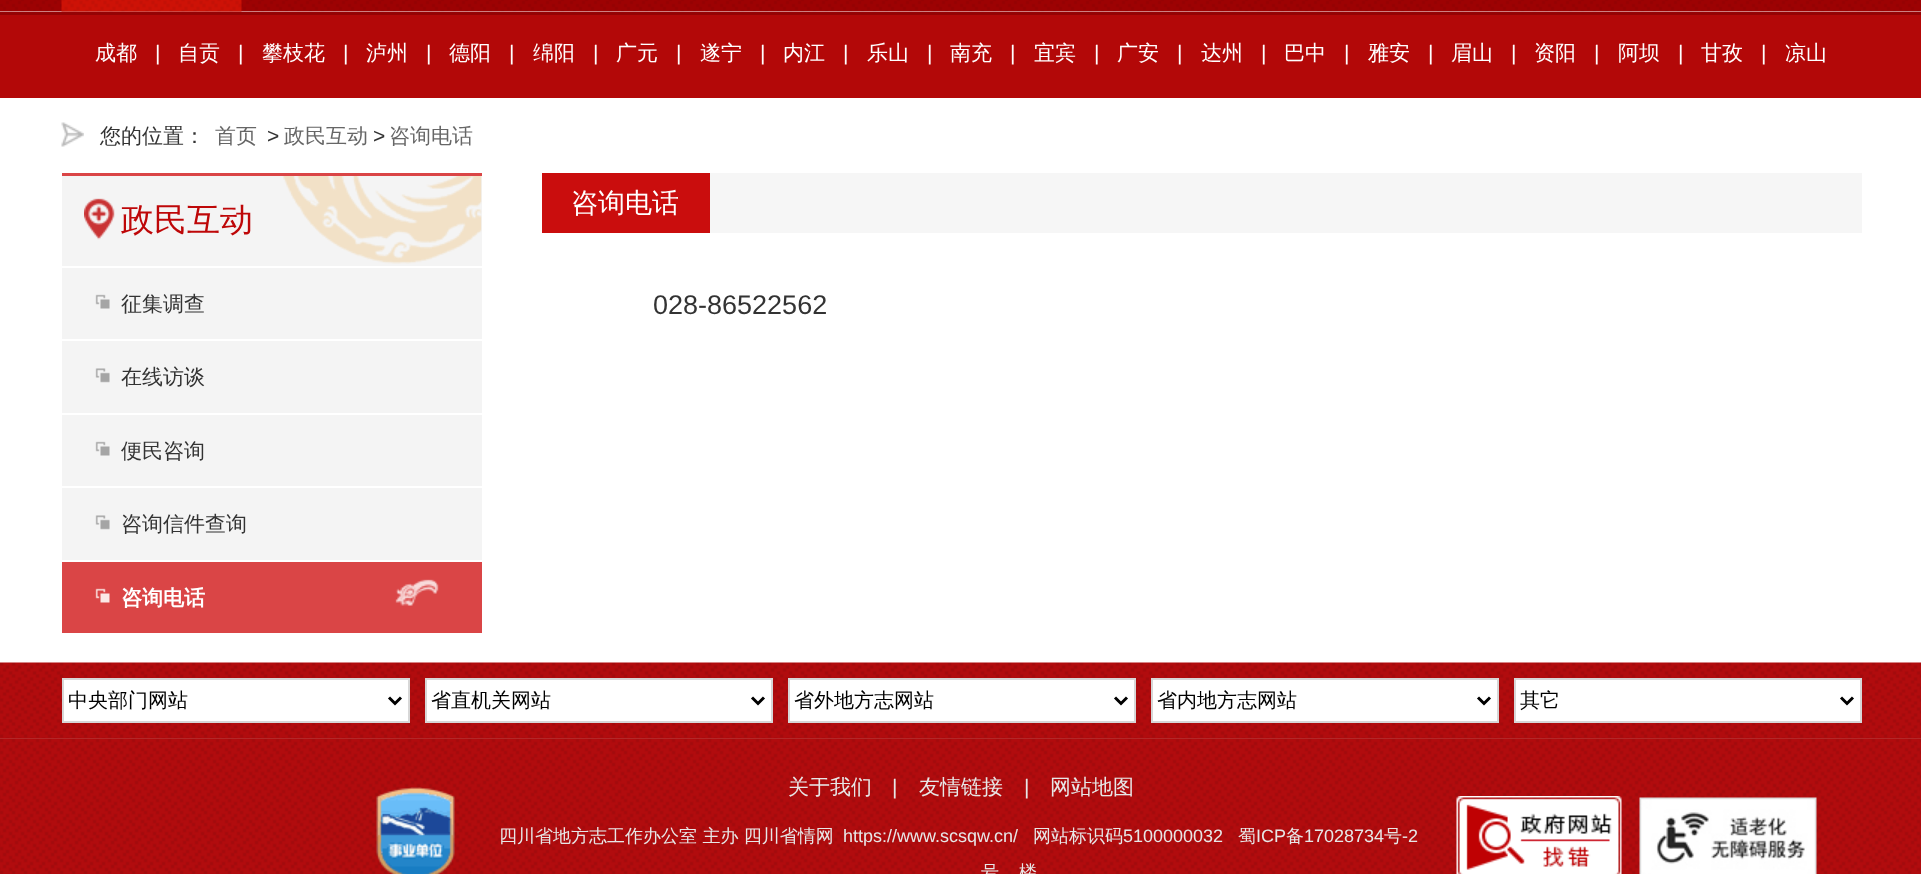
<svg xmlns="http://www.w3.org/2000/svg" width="1921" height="874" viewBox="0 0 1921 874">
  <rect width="100%" height="100%" fill="rgb(255,255,255)"/>
  <image x="0" y="0" width="1921" height="12" href="pic1.png"/>
  <image x="61" y="0" width="181" height="12" href="pic2.png"/>
  <rect x="0" y="15" width="1921" height="83" fill="rgb(179,8,8)"/>
  <rect x="0" y="12" width="1921" height="3" fill="rgb(149,3,4)"/>
  <text x="95" y="60" font-family="WenQuanYi Zen Hei" font-size="21" font-weight="500" fill="rgb(255,255,255)">成都</text>
  <text x="155" y="60" font-family="Liberation Sans" font-size="21" fill="rgb(255,255,255)">|</text>
  <text x="178" y="60" font-family="WenQuanYi Zen Hei" font-size="21" font-weight="500" fill="rgb(255,255,255)">自贡</text>
  <text x="238" y="60" font-family="Liberation Sans" font-size="21" fill="rgb(255,255,255)">|</text>
  <text x="262" y="60" font-family="WenQuanYi Zen Hei" font-size="21" font-weight="500" fill="rgb(255,255,255)">攀枝花</text>
  <text x="343" y="60" font-family="Liberation Sans" font-size="21" fill="rgb(255,255,255)">|</text>
  <text x="366" y="60" font-family="WenQuanYi Zen Hei" font-size="21" font-weight="500" fill="rgb(255,255,255)">泸州</text>
  <text x="426" y="60" font-family="Liberation Sans" font-size="21" fill="rgb(255,255,255)">|</text>
  <text x="449" y="60" font-family="WenQuanYi Zen Hei" font-size="21" font-weight="500" fill="rgb(255,255,255)">德阳</text>
  <text x="509" y="60" font-family="Liberation Sans" font-size="21" fill="rgb(255,255,255)">|</text>
  <text x="533" y="60" font-family="WenQuanYi Zen Hei" font-size="21" font-weight="500" fill="rgb(255,255,255)">绵阳</text>
  <text x="593" y="60" font-family="Liberation Sans" font-size="21" fill="rgb(255,255,255)">|</text>
  <text x="616" y="60" font-family="WenQuanYi Zen Hei" font-size="21" font-weight="500" fill="rgb(255,255,255)">广元</text>
  <text x="676" y="60" font-family="Liberation Sans" font-size="21" fill="rgb(255,255,255)">|</text>
  <text x="700" y="60" font-family="WenQuanYi Zen Hei" font-size="21" font-weight="500" fill="rgb(255,255,255)">遂宁</text>
  <text x="760" y="60" font-family="Liberation Sans" font-size="21" fill="rgb(255,255,255)">|</text>
  <text x="783" y="60" font-family="WenQuanYi Zen Hei" font-size="21" font-weight="500" fill="rgb(255,255,255)">内江</text>
  <text x="843" y="60" font-family="Liberation Sans" font-size="21" fill="rgb(255,255,255)">|</text>
  <text x="867" y="60" font-family="WenQuanYi Zen Hei" font-size="21" font-weight="500" fill="rgb(255,255,255)">乐山</text>
  <text x="927" y="60" font-family="Liberation Sans" font-size="21" fill="rgb(255,255,255)">|</text>
  <text x="950" y="60" font-family="WenQuanYi Zen Hei" font-size="21" font-weight="500" fill="rgb(255,255,255)">南充</text>
  <text x="1010" y="60" font-family="Liberation Sans" font-size="21" fill="rgb(255,255,255)">|</text>
  <text x="1034" y="60" font-family="WenQuanYi Zen Hei" font-size="21" font-weight="500" fill="rgb(255,255,255)">宜宾</text>
  <text x="1094" y="60" font-family="Liberation Sans" font-size="21" fill="rgb(255,255,255)">|</text>
  <text x="1117" y="60" font-family="WenQuanYi Zen Hei" font-size="21" font-weight="500" fill="rgb(255,255,255)">广安</text>
  <text x="1177" y="60" font-family="Liberation Sans" font-size="21" fill="rgb(255,255,255)">|</text>
  <text x="1201" y="60" font-family="WenQuanYi Zen Hei" font-size="21" font-weight="500" fill="rgb(255,255,255)">达州</text>
  <text x="1261" y="60" font-family="Liberation Sans" font-size="21" fill="rgb(255,255,255)">|</text>
  <text x="1284" y="60" font-family="WenQuanYi Zen Hei" font-size="21" font-weight="500" fill="rgb(255,255,255)">巴中</text>
  <text x="1344" y="60" font-family="Liberation Sans" font-size="21" fill="rgb(255,255,255)">|</text>
  <text x="1368" y="60" font-family="WenQuanYi Zen Hei" font-size="21" font-weight="500" fill="rgb(255,255,255)">雅安</text>
  <text x="1428" y="60" font-family="Liberation Sans" font-size="21" fill="rgb(255,255,255)">|</text>
  <text x="1451" y="60" font-family="WenQuanYi Zen Hei" font-size="21" font-weight="500" fill="rgb(255,255,255)">眉山</text>
  <text x="1511" y="60" font-family="Liberation Sans" font-size="21" fill="rgb(255,255,255)">|</text>
  <text x="1534" y="60" font-family="WenQuanYi Zen Hei" font-size="21" font-weight="500" fill="rgb(255,255,255)">资阳</text>
  <text x="1594" y="60" font-family="Liberation Sans" font-size="21" fill="rgb(255,255,255)">|</text>
  <text x="1618" y="60" font-family="WenQuanYi Zen Hei" font-size="21" font-weight="500" fill="rgb(255,255,255)">阿坝</text>
  <text x="1678" y="60" font-family="Liberation Sans" font-size="21" fill="rgb(255,255,255)">|</text>
  <text x="1701" y="60" font-family="WenQuanYi Zen Hei" font-size="21" font-weight="500" fill="rgb(255,255,255)">甘孜</text>
  <text x="1761" y="60" font-family="Liberation Sans" font-size="21" fill="rgb(255,255,255)">|</text>
  <text x="1785" y="60" font-family="WenQuanYi Zen Hei" font-size="21" font-weight="500" fill="rgb(255,255,255)">凉山</text>
  <image x="61" y="122" width="23" height="25" href="pic3.png"/>
  <text x="100" y="143" font-family="WenQuanYi Zen Hei" font-size="21" font-weight="500" fill="rgb(51,51,51)">您的位置：</text>
  <text x="215" y="143" font-family="WenQuanYi Zen Hei" font-size="21" font-weight="500" fill="rgb(102,102,102)">首页</text>
  <text x="267" y="143" font-family="Liberation Sans" font-size="21" fill="rgb(51,51,51)">&gt;</text>
  <text x="284" y="143" font-family="WenQuanYi Zen Hei" font-size="21" font-weight="500" fill="rgb(102,102,102)">政民互动</text>
  <text x="373" y="143" font-family="Liberation Sans" font-size="21" fill="rgb(51,51,51)">&gt;</text>
  <text x="389" y="143" font-family="WenQuanYi Zen Hei" font-size="21" font-weight="500" fill="rgb(102,102,102)">咨询电话</text>
  <rect x="62" y="176" width="420" height="90" fill="rgb(244,244,244)"/>
  <image x="84" y="176" width="398" height="88" href="pic4.png"/>
  <rect x="62" y="173" width="420" height="3" fill="rgb(218,69,70)"/>
  <text x="121" y="231" font-family="WenQuanYi Zen Hei" font-size="33" font-weight="500" fill="rgb(190,7,8)">政民互动</text>
  <rect x="62" y="268" width="420" height="71" fill="rgb(244,244,244)"/>
  <image x="95" y="294" width="15" height="15" href="pic5.png"/>
  <text x="121" y="311" font-family="WenQuanYi Zen Hei" font-size="21" font-weight="500" fill="rgb(51,51,51)">征集调查</text>
  <rect x="62" y="341" width="420" height="72" fill="rgb(244,244,244)"/>
  <image x="95" y="368" width="15" height="15" href="pic6.png"/>
  <text x="121" y="384" font-family="WenQuanYi Zen Hei" font-size="21" font-weight="500" fill="rgb(51,51,51)">在线访谈</text>
  <rect x="62" y="415" width="420" height="71" fill="rgb(244,244,244)"/>
  <image x="95" y="441" width="15" height="15" href="pic5.png"/>
  <text x="121" y="458" font-family="WenQuanYi Zen Hei" font-size="21" font-weight="500" fill="rgb(51,51,51)">便民咨询</text>
  <rect x="62" y="488" width="420" height="72" fill="rgb(244,244,244)"/>
  <image x="95" y="515" width="15" height="15" href="pic6.png"/>
  <text x="121" y="531" font-family="WenQuanYi Zen Hei" font-size="21" font-weight="500" fill="rgb(51,51,51)">咨询信件查询</text>
  <rect x="62" y="562" width="420" height="71" fill="rgb(218,69,70)"/>
  <image x="95" y="579" width="344" height="27" href="pic7.png"/>
  <text x="121" y="605" font-family="WenQuanYi Zen Hei" font-size="21" font-weight="bold" fill="rgb(255,255,255)">咨询电话</text>
  <rect x="710" y="173" width="1152" height="60" fill="rgb(246,246,246)"/>
  <rect x="542" y="173" width="168" height="60" fill="rgb(202,13,13)"/>
  <text x="571" y="212" font-family="WenQuanYi Zen Hei" font-size="27" font-weight="500" fill="rgb(255,255,255)">咨询电话</text>
  <text x="653" y="314" font-family="Liberation Sans" font-size="27" fill="rgb(51,51,51)">028-86522562</text>
  <image x="0" y="662" width="1921" height="76" href="pic8.png"/>
  <rect x="0" y="738" width="1921" height="1" fill="rgb(179,39,40)"/>
  <rect x="63" y="679" width="346" height="43" fill="rgb(255,255,255)" stroke="rgb(215,215,215)" stroke-width="2"/>
  <path d="M389 697.5L395 703.5L401 697.5" fill="none" stroke="rgb(0,0,0)" stroke-width="3"/>
  <text x="68" y="707" font-family="WenQuanYi Zen Hei" font-size="20" font-weight="500" fill="rgb(0,0,0)">中央部门网站</text>
  <rect x="426" y="679" width="346" height="43" fill="rgb(255,255,255)" stroke="rgb(215,215,215)" stroke-width="2"/>
  <path d="M752 697.5L758 703.5L764 697.5" fill="none" stroke="rgb(0,0,0)" stroke-width="3"/>
  <text x="431" y="707" font-family="WenQuanYi Zen Hei" font-size="20" font-weight="500" fill="rgb(0,0,0)">省直机关网站</text>
  <rect x="789" y="679" width="346" height="43" fill="rgb(255,255,255)" stroke="rgb(215,215,215)" stroke-width="2"/>
  <path d="M1115 697.5L1121 703.5L1127 697.5" fill="none" stroke="rgb(0,0,0)" stroke-width="3"/>
  <text x="794" y="707" font-family="WenQuanYi Zen Hei" font-size="20" font-weight="500" fill="rgb(0,0,0)">省外地方志网站</text>
  <rect x="1152" y="679" width="346" height="43" fill="rgb(255,255,255)" stroke="rgb(215,215,215)" stroke-width="2"/>
  <path d="M1478 697.5L1484 703.5L1490 697.5" fill="none" stroke="rgb(0,0,0)" stroke-width="3"/>
  <text x="1157" y="707" font-family="WenQuanYi Zen Hei" font-size="20" font-weight="500" fill="rgb(0,0,0)">省内地方志网站</text>
  <rect x="1515" y="679" width="346" height="43" fill="rgb(255,255,255)" stroke="rgb(215,215,215)" stroke-width="2"/>
  <path d="M1841 697.5L1847 703.5L1853 697.5" fill="none" stroke="rgb(0,0,0)" stroke-width="3"/>
  <text x="1520" y="707" font-family="WenQuanYi Zen Hei" font-size="20" font-weight="500" fill="rgb(0,0,0)">其它</text>
  <image x="0" y="739" width="1921" height="135" href="pic9.png"/>
  <text x="788" y="794" font-family="WenQuanYi Zen Hei" font-size="21" font-weight="500" fill="rgb(231,231,231)">关于我们</text>
  <text x="892" y="794" font-family="Liberation Sans" font-size="21" fill="rgb(231,231,231)">|</text>
  <text x="919" y="794" font-family="WenQuanYi Zen Hei" font-size="21" font-weight="500" fill="rgb(231,231,231)">友情链接</text>
  <text x="1024" y="794" font-family="Liberation Sans" font-size="21" fill="rgb(231,231,231)">|</text>
  <text x="1050" y="794" font-family="WenQuanYi Zen Hei" font-size="21" font-weight="500" fill="rgb(231,231,231)">网站地图</text>
  <image x="376" y="787" width="79" height="87" href="pic10.png"/>
  <image x="1456" y="796" width="166" height="78" href="pic11.png"/>
  <image x="1639" y="797" width="178" height="77" href="pic12.png"/>
  <text x="499" y="842" font-family="WenQuanYi Zen Hei" font-size="18" font-weight="500" fill="rgb(231,231,231)">四川省地方志工作办公室 主办 四川省情网</text>
  <text x="843" y="842" font-family="Liberation Sans" font-size="18" fill="rgb(231,231,231)">https://www.scsqw.cn/</text>
  <text x="1033" y="842" font-family="WenQuanYi Zen Hei" font-size="18" font-weight="500" fill="rgb(231,231,231)">网站标识码</text>
  <text x="1123" y="842" font-family="Liberation Sans" font-size="18" fill="rgb(231,231,231)">5100000032</text>
  <text x="1238" y="842" font-family="WenQuanYi Zen Hei" font-size="18" font-weight="500" fill="rgb(231,231,231)">蜀</text>
  <text x="1256" y="842" font-family="Liberation Sans" font-size="18" fill="rgb(231,231,231)">ICP</text>
  <text x="1286" y="842" font-family="WenQuanYi Zen Hei" font-size="18" font-weight="500" fill="rgb(231,231,231)">备</text>
  <text x="1304" y="842" font-family="Liberation Sans" font-size="18" fill="rgb(231,231,231)">17028734</text>
  <text x="1384" y="842" font-family="WenQuanYi Zen Hei" font-size="18" font-weight="500" fill="rgb(231,231,231)">号</text>
  <text x="1402" y="842" font-family="Liberation Sans" font-size="18" fill="rgb(231,231,231)">-2</text>
  <g font-family="WenQuanYi Zen Hei" font-size="18" font-weight="500" fill="rgb(231,231,231)">
    <text x="981" y="878">号</text>
    <text x="1019" y="878">楼</text>
  </g>
</svg>
